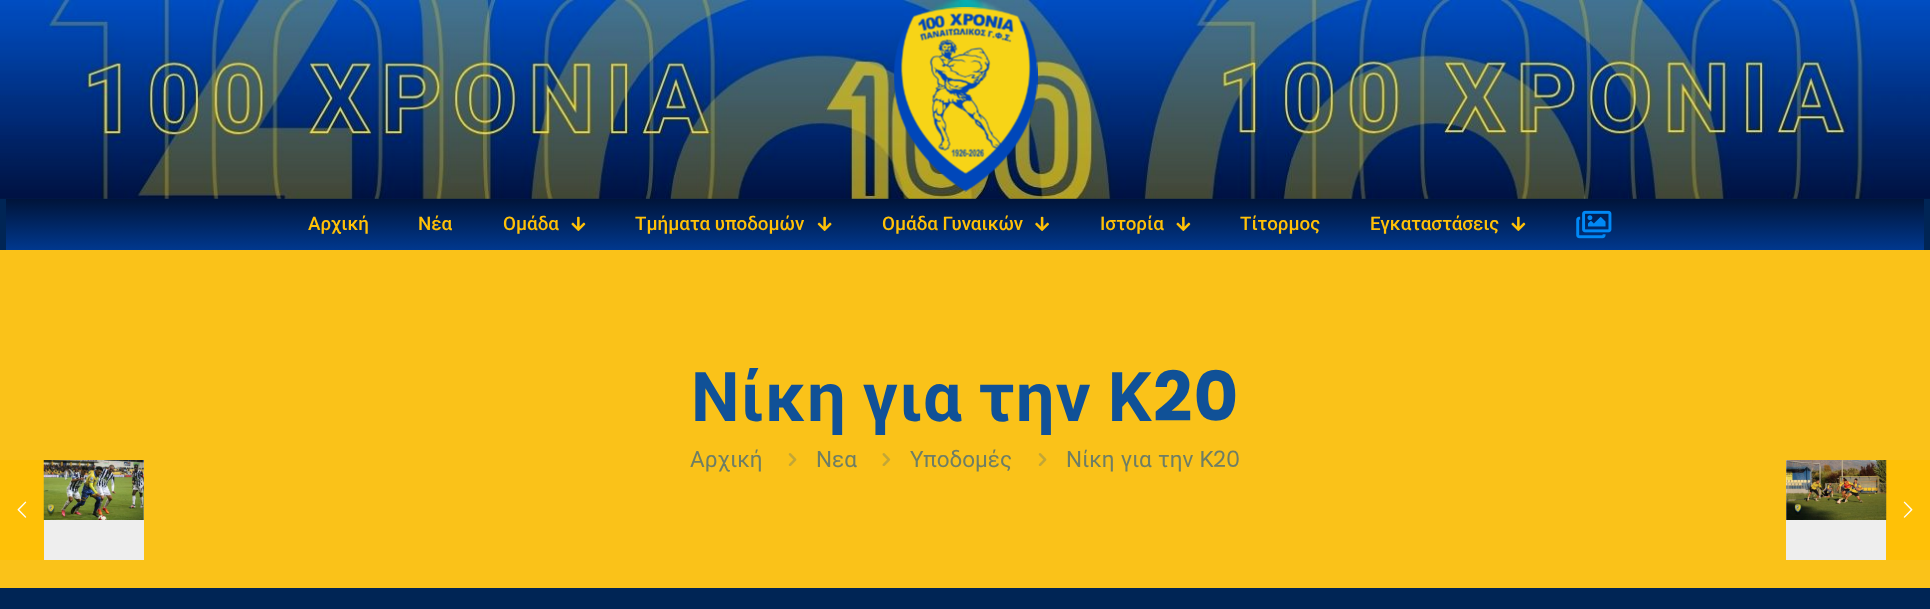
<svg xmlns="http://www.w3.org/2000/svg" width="1930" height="609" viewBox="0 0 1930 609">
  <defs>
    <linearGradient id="g1" gradientUnits="userSpaceOnUse" x1="965" y1="250" x2="965" y2="199"><stop offset="0" stop-color="rgb(0,56,142)"/><stop offset="1" stop-color="rgb(0,20,57)"/></linearGradient>
  </defs>
  <rect width="100%" height="100%" fill="rgb(0,37,85)"/>
  <image x="0" y="0" width="1930" height="199" href="pic1.png"/>
  <image x="894" y="7" width="144" height="185" href="pic2.png"/>
  <rect x="6" y="199" width="1918" height="51" fill="url(#g1)"/>
  <g font-family="Roboto" font-size="18.75" font-weight="500" fill="rgb(255,193,7)">
    <text x="308" y="230">Αρχική</text>
    <text x="418" y="230">Νέα</text>
    <text x="503" y="230">Ομάδα</text>
  </g>
  <image x="571" y="216" width="15" height="15" href="pic3.png"/>
  <text x="635" y="230" font-family="Roboto" font-size="18.75" font-weight="500" fill="rgb(255,193,7)">Τμήματα υποδομών</text>
  <image x="817" y="216" width="15" height="15" href="pic4.png"/>
  <text x="882" y="230" font-family="Roboto" font-size="18.75" font-weight="500" fill="rgb(255,193,7)">Ομάδα Γυναικών</text>
  <image x="1035" y="216" width="14" height="15" href="pic5.png"/>
  <text x="1100" y="230" font-family="Roboto" font-size="18.75" font-weight="500" fill="rgb(255,193,7)">Ιστορία</text>
  <image x="1176" y="216" width="15" height="15" href="pic3.png"/>
  <g font-family="Roboto" font-size="18.75" font-weight="500" fill="rgb(255,193,7)">
    <text x="1240" y="230">Τίτορμος</text>
    <text x="1370" y="230">Εγκαταστάσεις</text>
  </g>
  <image x="1511" y="216" width="15" height="15" href="pic3.png"/>
  <image x="1576" y="210" width="36" height="29" href="pic6.png"/>
  <rect x="0" y="250" width="1930" height="338" fill="rgb(250,194,25)"/>
  <text x="691" y="421" word-spacing="-2.5" font-family="Roboto" font-size="68.75" font-weight="bold" letter-spacing="1.25" fill="rgb(16,81,151)">Νίκη για την Κ</text>
  <text x="1153" y="421" font-family="Poppins" font-size="68.75" font-weight="bold" letter-spacing="1.25" fill="rgb(16,81,151)">20</text>
  <text x="690" y="467" font-family="Roboto" font-size="22.5" fill="rgb(110,126,101)">Αρχική</text>
  <image x="788" y="453" width="9" height="13" href="pic7.png"/>
  <text x="816" y="467" font-family="Roboto" font-size="22.5" fill="rgb(110,126,101)">Νεα</text>
  <image x="882" y="453" width="9" height="13" href="pic8.png"/>
  <text x="910" y="467" font-family="Roboto" font-size="22.5" fill="rgb(110,126,101)">Υποδομές</text>
  <image x="1038" y="453" width="9" height="13" href="pic7.png"/>
  <text x="1066" y="467" word-spacing="0.5" font-family="Roboto" font-size="22.5" fill="rgb(110,126,101)">Νίκη για την Κ</text>
  <text x="1213" y="467" font-family="Poppins" font-size="22.5" fill="rgb(110,126,101)">20</text>
  <rect x="0" y="460" width="44" height="100" fill="rgb(255,193,7)"/>
  <image x="17" y="501" width="10" height="17" href="pic9.png"/>
  <rect x="44" y="460" width="100" height="100" fill="rgb(238,238,238)"/>
  <image x="43" y="460" width="101" height="60" href="pic10.png"/>
  <rect x="1786" y="460" width="100" height="100" fill="rgb(238,238,238)"/>
  <rect x="1886" y="460" width="44" height="100" fill="rgb(255,193,7)"/>
  <image x="1786" y="460" width="101" height="60" href="pic11.png"/>
  <image x="1903" y="501" width="10" height="17" href="pic12.png"/>
</svg>
